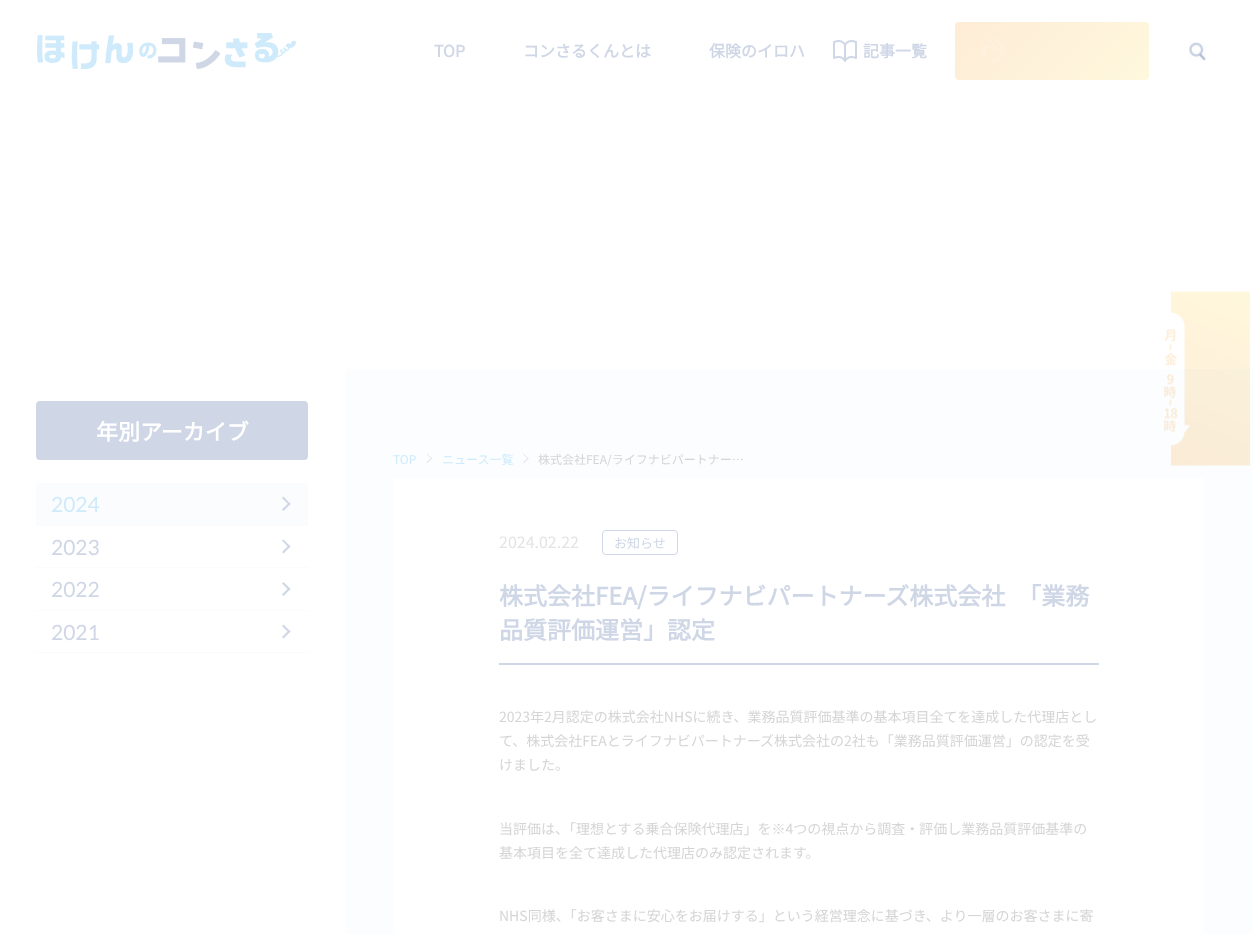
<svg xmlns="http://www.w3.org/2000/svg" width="1253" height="934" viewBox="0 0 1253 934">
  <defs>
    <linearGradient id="g1" gradientUnits="userSpaceOnUse" x1="989" y1="-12" x2="1115" y2="114"><stop offset="0" stop-color="rgb(254,236,214)"/><stop offset="1" stop-color="rgb(254,248,221)"/></linearGradient>
  </defs>
  <rect width="100%" height="100%" fill="rgb(255,255,255)"/>
  <image x="37" y="33" width="259" height="36" href="pic1.png"/>
  <g font-family="Noto Sans JP" font-size="16" font-weight="bold" fill="rgb(207,215,230)">
    <text x="434" y="57">TOP</text>
    <text x="523" y="57">コンさるくんとは</text>
    <text x="709" y="57">保険のイロハ</text>
  </g>
  <image x="833" y="40" width="24" height="22" href="pic2.png"/>
  <text x="863" y="57" font-family="Noto Sans JP" font-size="16" font-weight="bold" fill="rgb(207,215,230)">記事一覧</text>
  <rect x="955" y="22" width="194" height="58" rx="4" fill="url(#g1)"/>
  <image x="981" y="39" width="24" height="24" href="pic3.png"/>
  <image x="1189" y="42" width="17" height="19" href="pic4.png"/>
  <rect x="345" y="369" width="908" height="565" fill="rgb(251,253,255)"/>
  <image x="1164" y="291" width="86" height="175" href="pic5.png"/>
  <rect x="36" y="401" width="272" height="59" rx="4" fill="rgb(207,215,230)"/>
  <text x="96" y="440" font-family="Noto Sans JP" font-size="22" font-weight="bold" fill="rgb(255,255,255)">年別アーカイブ</text>
  <rect x="36" y="525" width="272" height="1" fill="rgb(251,251,251)"/>
  <rect x="36" y="483" width="272" height="42" fill="rgb(250,252,254)"/>
  <text x="51" y="512" font-family="Lato" font-size="21" fill="rgb(207,235,250)">2024</text>
  <path d="M283.5 496.5L290.5 504L289 505L282 498Z" fill="rgb(207,215,230)"/>
  <path d="M289 502.5L290.5 504L283.5 511L282 509.5Z" fill="rgb(207,215,230)"/>
  <rect x="36" y="567" width="272" height="1" fill="rgb(251,251,251)"/>
  <text x="51" y="555" font-family="Lato" font-size="21" fill="rgb(207,215,230)">2023</text>
  <path d="M283.5 539.5L290.5 546.5L289 548L282 540.5Z" fill="rgb(207,215,230)"/>
  <path d="M289 545L290.5 546.5L283.5 553.5L282 552Z" fill="rgb(207,215,230)"/>
  <rect x="36" y="610" width="272" height="1" fill="rgb(251,251,251)"/>
  <text x="51" y="597" font-family="Lato" font-size="21" fill="rgb(207,215,230)">2022</text>
  <path d="M283.5 582L290.5 589L289 590.5L282 583.5Z" fill="rgb(207,215,230)"/>
  <path d="M289 587.5L290.5 589L283.5 596L282 594.5Z" fill="rgb(207,215,230)"/>
  <rect x="36" y="652" width="272" height="1" fill="rgb(251,251,251)"/>
  <text x="51" y="640" font-family="Lato" font-size="21" fill="rgb(207,215,230)">2021</text>
  <path d="M283.5 624.5L290.5 631.5L289 633L282 626Z" fill="rgb(207,215,230)"/>
  <path d="M289 630L290.5 631.5L283.5 638.5L282 637Z" fill="rgb(207,215,230)"/>
  <text x="393" y="464" font-family="Noto Sans JP" font-size="12" font-weight="100" fill="rgb(207,235,250)">TOP</text>
  <path d="M427 453.5L432 458.5L431.5 459L426.5 454Z" fill="rgb(228,228,228)"/>
  <path d="M431.5 457.5L432 458.5L427 463.5L426.5 462.5Z" fill="rgb(228,228,228)"/>
  <text x="442" y="464" font-family="Noto Sans JP" font-size="12" font-weight="100" fill="rgb(207,235,250)">ニュース一覧</text>
  <path d="M523.5 453.5L528.5 458.5L528 459L523 454Z" fill="rgb(228,228,228)"/>
  <path d="M528 457.5L528.5 458.5L523.5 463.5L523 462.5Z" fill="rgb(228,228,228)"/>
  <text x="538" y="464" font-family="Noto Sans JP" font-size="12" font-weight="100" fill="rgb(213,213,213)">株式会社FEA/ライフナビパートナー…</text>
  <rect x="393" y="478" width="811" height="456" fill="rgb(255,255,255)"/>
  <text x="499" y="548" font-family="Noto Sans JP" font-size="16" font-weight="100" fill="rgb(228,228,228)">2024.02.22</text>
  <rect x="602.5" y="530.5" width="75" height="24" rx="3.5" fill="none" stroke="rgb(207,215,230)"/>
  <text x="614" y="548" font-family="Noto Sans JP" font-size="13" font-weight="100" fill="rgb(207,215,230)">お知らせ</text>
  <rect x="499" y="663" width="600" height="2" fill="rgb(207,215,230)"/>
  <g font-family="Noto Sans JP" font-size="24" font-weight="bold" fill="rgb(207,215,230)">
    <text>
      <tspan x="499" y="605">株式会社FEA/ライフナビパートナーズ株式会社　「業務</tspan>
      <tspan x="499" y="639">品質評価運営」認定</tspan>
    </text>
  </g>
  <g font-family="Noto Sans JP" font-size="14" font-weight="100" fill="rgb(213,213,213)">
    <text>
      <tspan x="499" y="722">2023年2月認定の株式会社NHSに続き、業務品質評価基準の基本項目全てを達成した代理店とし</tspan>
      <tspan x="499" y="746">て、株式会社FEAとライフナビパートナーズ株式会社の2社も「業務品質評価運営」の認定を受</tspan>
      <tspan x="499" y="770">けました。</tspan>
    </text>
    <text>
      <tspan x="499" y="834">当評価は、「理想とする乗合保険代理店」を※4つの視点から調査・評価し業務品質評価基準の</tspan>
      <tspan x="499" y="858">基本項目を全て達成した代理店のみ認定されます。</tspan>
    </text>
    <text x="499" y="921">NHS同様、「お客さまに安心をお届けする」という経営理念に基づき、より一層のお客さまに寄</text>
  </g>
</svg>
